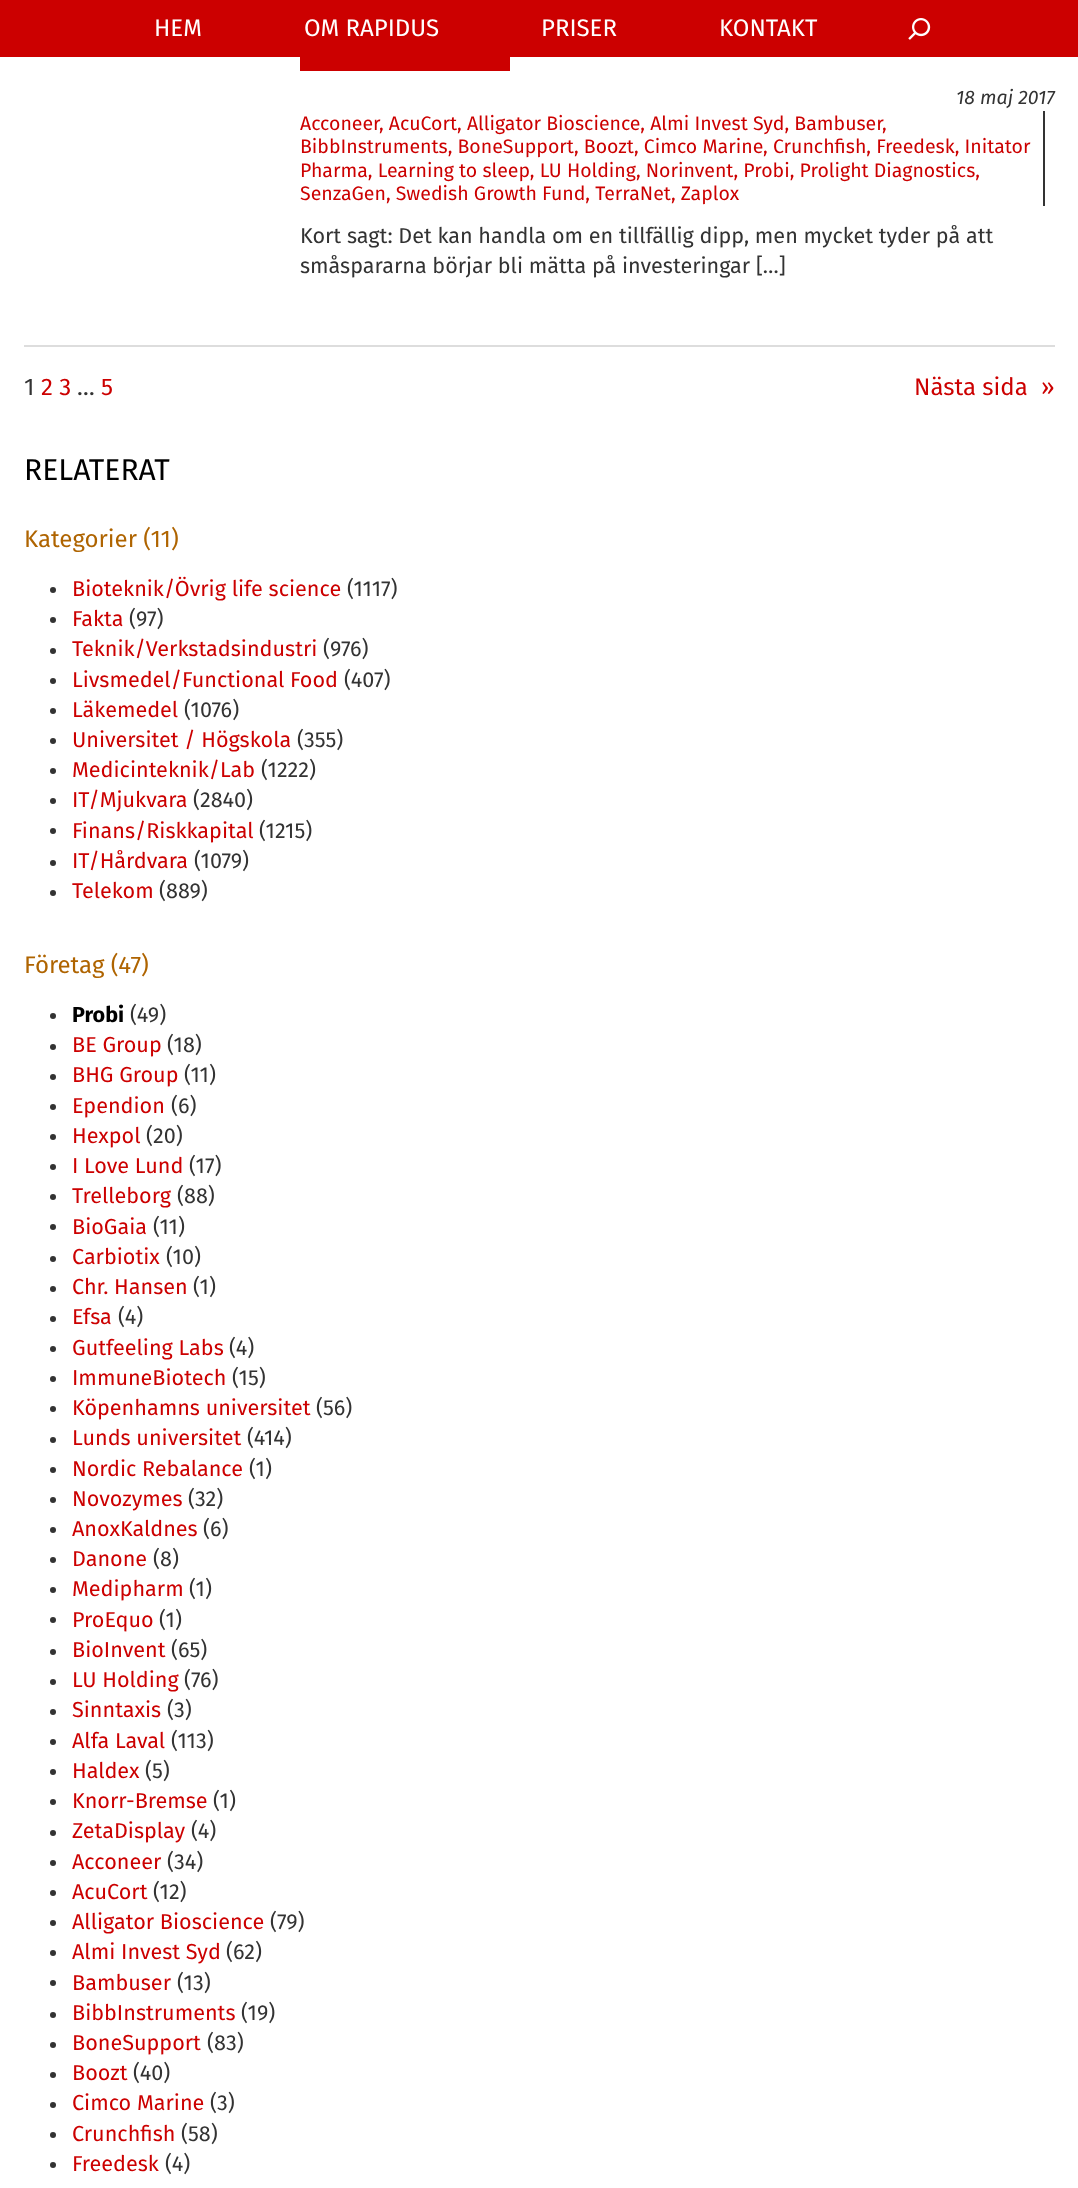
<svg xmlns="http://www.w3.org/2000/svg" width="1078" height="2188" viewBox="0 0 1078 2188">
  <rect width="100%" height="100%" fill="rgb(255,255,255)"/>
  <rect x="0" y="0" width="1078" height="57" fill="rgb(204,0,0)"/>
  <g font-family="Fira Sans" font-size="24" fill="rgb(255,255,255)">
    <text x="154" y="36">HEM</text>
    <text x="304" y="36">OM RAPIDUS</text>
    <text x="541" y="36">PRISER</text>
    <text x="719" y="36">KONTAKT</text>
  </g>
  <image x="908" y="18" width="23" height="22" href="pic1.png"/>
  <rect x="300" y="57" width="210" height="14" fill="rgb(204,0,0)"/>
  <text x="956" y="104" font-family="Fira Sans" font-size="19.5" font-style="italic" fill="rgb(51,51,51)">18 maj 2017</text>
  <rect x="1043" y="111" width="2" height="95" fill="rgb(51,51,51)"/>
  <g font-family="Fira Sans" font-size="19.5" fill="rgb(204,0,0)">
    <text x="300" y="130">Acconeer</text>
    <text x="379" y="130">, AcuCort, Alligator Bioscience, Almi Invest Syd, Bambuser</text>
    <text x="882" y="130">,</text>
    <text>
      <tspan x="300" y="153">BibbInstruments, BoneSupport, Boozt, Cimco Marine, Crunchfish, Freedesk, Initator</tspan>
      <tspan x="300" y="177">Pharma, Learning to sleep, LU Holding, Norinvent, Probi, Prolight Diagnostics,</tspan>
      <tspan x="300" y="200">SenzaGen, Swedish Growth Fund, TerraNet, Zaplox</tspan>
    </text>
  </g>
  <g font-family="Fira Sans" font-size="21.6" fill="rgb(51,51,51)">
    <text>
      <tspan x="300" y="243">Kort sagt: Det kan handla om en tillfällig dipp, men mycket tyder på att</tspan>
      <tspan x="300" y="273">småspararna börjar bli mätta på investeringar […]</tspan>
    </text>
  </g>
  <rect x="24" y="345" width="1031" height="2" fill="rgb(221,221,221)"/>
  <text x="24" y="395" font-family="Fira Sans" font-size="24" fill="rgb(51,51,51)">1</text>
  <text x="41" y="395" font-family="Fira Sans" font-size="24" fill="rgb(204,0,0)">2 3</text>
  <text x="77" y="395" font-family="Fira Sans" font-size="24" fill="rgb(51,51,51)">…</text>
  <g font-family="Fira Sans" font-size="24" fill="rgb(204,0,0)">
    <text x="101" y="395">5</text>
    <text x="914" y="395">Nästa sida</text>
    <text x="1041" y="395">»</text>
  </g>
  <text x="24" y="480" font-family="Fira Sans" font-size="30" fill="rgb(0,0,0)">RELATERAT</text>
  <text x="24" y="547" font-family="Fira Sans" font-size="24" fill="rgb(175,100,0)">Kategorier (11)</text>
  <circle cx="53" cy="590" r="3" fill="rgb(51,51,51)"/>
  <text x="72" y="596" font-family="Fira Sans" font-size="21.6" fill="rgb(204,0,0)">Bioteknik/Övrig life science</text>
  <text x="347" y="596" font-family="Fira Sans" font-size="21.6" fill="rgb(51,51,51)">(1117)</text>
  <circle cx="53" cy="620" r="3" fill="rgb(51,51,51)"/>
  <text x="72" y="626" font-family="Fira Sans" font-size="21.6" fill="rgb(204,0,0)">Fakta</text>
  <text x="129" y="626" font-family="Fira Sans" font-size="21.6" fill="rgb(51,51,51)">(97)</text>
  <circle cx="53" cy="651" r="3" fill="rgb(51,51,51)"/>
  <text x="72" y="656" font-family="Fira Sans" font-size="21.6" fill="rgb(204,0,0)">Teknik/Verkstadsindustri</text>
  <text x="323" y="656" font-family="Fira Sans" font-size="21.6" fill="rgb(51,51,51)">(976)</text>
  <circle cx="53" cy="681" r="3" fill="rgb(51,51,51)"/>
  <text x="72" y="687" font-family="Fira Sans" font-size="21.6" fill="rgb(204,0,0)">Livsmedel/Functional Food</text>
  <text x="344" y="687" font-family="Fira Sans" font-size="21.6" fill="rgb(51,51,51)">(407)</text>
  <circle cx="53" cy="711" r="3" fill="rgb(51,51,51)"/>
  <text x="72" y="717" font-family="Fira Sans" font-size="21.6" fill="rgb(204,0,0)">Läkemedel</text>
  <text x="184" y="717" font-family="Fira Sans" font-size="21.6" fill="rgb(51,51,51)">(1076)</text>
  <circle cx="53" cy="741" r="3" fill="rgb(51,51,51)"/>
  <text x="72" y="747" font-family="Fira Sans" font-size="21.6" fill="rgb(204,0,0)">Universitet / Högskola</text>
  <text x="297" y="747" font-family="Fira Sans" font-size="21.6" fill="rgb(51,51,51)">(355)</text>
  <circle cx="53" cy="771" r="3" fill="rgb(51,51,51)"/>
  <text x="72" y="777" font-family="Fira Sans" font-size="21.6" fill="rgb(204,0,0)">Medicinteknik/Lab</text>
  <text x="261" y="777" font-family="Fira Sans" font-size="21.6" fill="rgb(51,51,51)">(1222)</text>
  <circle cx="53" cy="801" r="3" fill="rgb(51,51,51)"/>
  <text x="72" y="807" font-family="Fira Sans" font-size="21.6" fill="rgb(204,0,0)">IT/Mjukvara</text>
  <text x="193" y="807" font-family="Fira Sans" font-size="21.6" fill="rgb(51,51,51)">(2840)</text>
  <circle cx="53" cy="831" r="3" fill="rgb(51,51,51)"/>
  <text x="72" y="838" font-family="Fira Sans" font-size="21.6" fill="rgb(204,0,0)">Finans/Riskkapital</text>
  <text x="259" y="838" font-family="Fira Sans" font-size="21.6" fill="rgb(51,51,51)">(1215)</text>
  <circle cx="53" cy="863" r="3" fill="rgb(51,51,51)"/>
  <text x="72" y="868" font-family="Fira Sans" font-size="21.6" fill="rgb(204,0,0)">IT/Hårdvara</text>
  <text x="194" y="868" font-family="Fira Sans" font-size="21.6" fill="rgb(51,51,51)">(1079)</text>
  <circle cx="53" cy="893" r="3" fill="rgb(51,51,51)"/>
  <text x="72" y="898" font-family="Fira Sans" font-size="21.6" fill="rgb(204,0,0)">Telekom</text>
  <text x="159" y="898" font-family="Fira Sans" font-size="21.6" fill="rgb(51,51,51)">(889)</text>
  <text x="24" y="973" font-family="Fira Sans" font-size="24" fill="rgb(175,100,0)">Företag (47)</text>
  <circle cx="53" cy="1016" r="3" fill="rgb(51,51,51)"/>
  <text x="72" y="1022" font-family="Fira Sans" font-size="21.6" font-weight="bold" fill="rgb(0,0,0)">Probi</text>
  <text x="130" y="1022" font-family="Fira Sans" font-size="21.6" fill="rgb(51,51,51)">(49)</text>
  <circle cx="53" cy="1047" r="3" fill="rgb(51,51,51)"/>
  <text x="72" y="1052" font-family="Fira Sans" font-size="21.6" fill="rgb(204,0,0)">BE Group</text>
  <text x="167" y="1052" font-family="Fira Sans" font-size="21.6" fill="rgb(51,51,51)">(18)</text>
  <circle cx="53" cy="1077" r="3" fill="rgb(51,51,51)"/>
  <text x="72" y="1082" font-family="Fira Sans" font-size="21.6" fill="rgb(204,0,0)">BHG Group</text>
  <text x="184" y="1082" font-family="Fira Sans" font-size="21.6" fill="rgb(51,51,51)">(11)</text>
  <circle cx="53" cy="1107" r="3" fill="rgb(51,51,51)"/>
  <text x="72" y="1113" font-family="Fira Sans" font-size="21.6" fill="rgb(204,0,0)">Ependion</text>
  <text x="171" y="1113" font-family="Fira Sans" font-size="21.6" fill="rgb(51,51,51)">(6)</text>
  <circle cx="53" cy="1137" r="3" fill="rgb(51,51,51)"/>
  <text x="72" y="1143" font-family="Fira Sans" font-size="21.6" fill="rgb(204,0,0)">Hexpol</text>
  <text x="146" y="1143" font-family="Fira Sans" font-size="21.6" fill="rgb(51,51,51)">(20)</text>
  <circle cx="53" cy="1167" r="3" fill="rgb(51,51,51)"/>
  <text x="72" y="1173" font-family="Fira Sans" font-size="21.6" fill="rgb(204,0,0)">I Love Lund</text>
  <text x="189" y="1173" font-family="Fira Sans" font-size="21.6" fill="rgb(51,51,51)">(17)</text>
  <circle cx="53" cy="1197" r="3" fill="rgb(51,51,51)"/>
  <text x="72" y="1203" font-family="Fira Sans" font-size="21.6" fill="rgb(204,0,0)">Trelleborg</text>
  <text x="177" y="1203" font-family="Fira Sans" font-size="21.6" fill="rgb(51,51,51)">(88)</text>
  <circle cx="53" cy="1227" r="3" fill="rgb(51,51,51)"/>
  <text x="72" y="1234" font-family="Fira Sans" font-size="21.6" fill="rgb(204,0,0)">BioGaia</text>
  <text x="153" y="1234" font-family="Fira Sans" font-size="21.6" fill="rgb(51,51,51)">(11)</text>
  <circle cx="53" cy="1259" r="3" fill="rgb(51,51,51)"/>
  <text x="72" y="1264" font-family="Fira Sans" font-size="21.6" fill="rgb(204,0,0)">Carbiotix</text>
  <text x="166" y="1264" font-family="Fira Sans" font-size="21.6" fill="rgb(51,51,51)">(10)</text>
  <circle cx="53" cy="1289" r="3" fill="rgb(51,51,51)"/>
  <text x="72" y="1294" font-family="Fira Sans" font-size="21.6" fill="rgb(204,0,0)">Chr. Hansen</text>
  <text x="193" y="1294" font-family="Fira Sans" font-size="21.6" fill="rgb(51,51,51)">(1)</text>
  <circle cx="53" cy="1319" r="3" fill="rgb(51,51,51)"/>
  <text x="72" y="1324" font-family="Fira Sans" font-size="21.6" fill="rgb(204,0,0)">Efsa</text>
  <text x="118" y="1324" font-family="Fira Sans" font-size="21.6" fill="rgb(51,51,51)">(4)</text>
  <circle cx="53" cy="1349" r="3" fill="rgb(51,51,51)"/>
  <text x="72" y="1355" font-family="Fira Sans" font-size="21.6" fill="rgb(204,0,0)">Gutfeeling Labs</text>
  <text x="229" y="1355" font-family="Fira Sans" font-size="21.6" fill="rgb(51,51,51)">(4)</text>
  <circle cx="53" cy="1379" r="3" fill="rgb(51,51,51)"/>
  <text x="72" y="1385" font-family="Fira Sans" font-size="21.6" fill="rgb(204,0,0)">ImmuneBiotech</text>
  <text x="232" y="1385" font-family="Fira Sans" font-size="21.6" fill="rgb(51,51,51)">(15)</text>
  <circle cx="53" cy="1409" r="3" fill="rgb(51,51,51)"/>
  <text x="72" y="1415" font-family="Fira Sans" font-size="21.6" fill="rgb(204,0,0)">Köpenhamns universitet</text>
  <text x="316" y="1415" font-family="Fira Sans" font-size="21.6" fill="rgb(51,51,51)">(56)</text>
  <circle cx="53" cy="1440" r="3" fill="rgb(51,51,51)"/>
  <text x="72" y="1445" font-family="Fira Sans" font-size="21.6" fill="rgb(204,0,0)">Lunds universitet</text>
  <text x="247" y="1445" font-family="Fira Sans" font-size="21.6" fill="rgb(51,51,51)">(414)</text>
  <circle cx="53" cy="1470" r="3" fill="rgb(51,51,51)"/>
  <text x="72" y="1476" font-family="Fira Sans" font-size="21.6" fill="rgb(204,0,0)">Nordic Rebalance</text>
  <text x="249" y="1476" font-family="Fira Sans" font-size="21.6" fill="rgb(51,51,51)">(1)</text>
  <circle cx="53" cy="1500" r="3" fill="rgb(51,51,51)"/>
  <text x="72" y="1506" font-family="Fira Sans" font-size="21.6" fill="rgb(204,0,0)">Novozymes</text>
  <text x="188" y="1506" font-family="Fira Sans" font-size="21.6" fill="rgb(51,51,51)">(32)</text>
  <circle cx="53" cy="1530" r="3" fill="rgb(51,51,51)"/>
  <text x="72" y="1536" font-family="Fira Sans" font-size="21.6" fill="rgb(204,0,0)">AnoxKaldnes</text>
  <text x="203" y="1536" font-family="Fira Sans" font-size="21.6" fill="rgb(51,51,51)">(6)</text>
  <circle cx="53" cy="1560" r="3" fill="rgb(51,51,51)"/>
  <text x="72" y="1566" font-family="Fira Sans" font-size="21.6" fill="rgb(204,0,0)">Danone</text>
  <text x="153" y="1566" font-family="Fira Sans" font-size="21.6" fill="rgb(51,51,51)">(8)</text>
  <circle cx="53" cy="1590" r="3" fill="rgb(51,51,51)"/>
  <text x="72" y="1596" font-family="Fira Sans" font-size="21.6" fill="rgb(204,0,0)">Medipharm</text>
  <text x="189" y="1596" font-family="Fira Sans" font-size="21.6" fill="rgb(51,51,51)">(1)</text>
  <circle cx="53" cy="1620" r="3" fill="rgb(51,51,51)"/>
  <text x="72" y="1627" font-family="Fira Sans" font-size="21.6" fill="rgb(204,0,0)">ProEquo</text>
  <text x="159" y="1627" font-family="Fira Sans" font-size="21.6" fill="rgb(51,51,51)">(1)</text>
  <circle cx="53" cy="1652" r="3" fill="rgb(51,51,51)"/>
  <text x="72" y="1657" font-family="Fira Sans" font-size="21.6" fill="rgb(204,0,0)">BioInvent</text>
  <text x="171" y="1657" font-family="Fira Sans" font-size="21.6" fill="rgb(51,51,51)">(65)</text>
  <circle cx="53" cy="1682" r="3" fill="rgb(51,51,51)"/>
  <text x="72" y="1687" font-family="Fira Sans" font-size="21.6" fill="rgb(204,0,0)">LU Holding</text>
  <text x="184" y="1687" font-family="Fira Sans" font-size="21.6" fill="rgb(51,51,51)">(76)</text>
  <circle cx="53" cy="1712" r="3" fill="rgb(51,51,51)"/>
  <text x="72" y="1717" font-family="Fira Sans" font-size="21.6" fill="rgb(204,0,0)">Sinntaxis</text>
  <text x="167" y="1717" font-family="Fira Sans" font-size="21.6" fill="rgb(51,51,51)">(3)</text>
  <circle cx="53" cy="1742" r="3" fill="rgb(51,51,51)"/>
  <text x="72" y="1748" font-family="Fira Sans" font-size="21.6" fill="rgb(204,0,0)">Alfa Laval</text>
  <text x="171" y="1748" font-family="Fira Sans" font-size="21.6" fill="rgb(51,51,51)">(113)</text>
  <circle cx="53" cy="1772" r="3" fill="rgb(51,51,51)"/>
  <text x="72" y="1778" font-family="Fira Sans" font-size="21.6" fill="rgb(204,0,0)">Haldex</text>
  <text x="145" y="1778" font-family="Fira Sans" font-size="21.6" fill="rgb(51,51,51)">(5)</text>
  <circle cx="53" cy="1802" r="3" fill="rgb(51,51,51)"/>
  <text x="72" y="1808" font-family="Fira Sans" font-size="21.6" fill="rgb(204,0,0)">Knorr-Bremse</text>
  <text x="213" y="1808" font-family="Fira Sans" font-size="21.6" fill="rgb(51,51,51)">(1)</text>
  <circle cx="53" cy="1833" r="3" fill="rgb(51,51,51)"/>
  <text x="72" y="1838" font-family="Fira Sans" font-size="21.6" fill="rgb(204,0,0)">ZetaDisplay</text>
  <text x="191" y="1838" font-family="Fira Sans" font-size="21.6" fill="rgb(51,51,51)">(4)</text>
  <circle cx="53" cy="1863" r="3" fill="rgb(51,51,51)"/>
  <text x="72" y="1869" font-family="Fira Sans" font-size="21.6" fill="rgb(204,0,0)">Acconeer</text>
  <text x="167" y="1869" font-family="Fira Sans" font-size="21.6" fill="rgb(51,51,51)">(34)</text>
  <circle cx="53" cy="1893" r="3" fill="rgb(51,51,51)"/>
  <text x="72" y="1899" font-family="Fira Sans" font-size="21.6" fill="rgb(204,0,0)">AcuCort</text>
  <text x="153" y="1899" font-family="Fira Sans" font-size="21.6" fill="rgb(51,51,51)">(12)</text>
  <circle cx="53" cy="1923" r="3" fill="rgb(51,51,51)"/>
  <text x="72" y="1929" font-family="Fira Sans" font-size="21.6" fill="rgb(204,0,0)">Alligator Bioscience</text>
  <text x="270" y="1929" font-family="Fira Sans" font-size="21.6" fill="rgb(51,51,51)">(79)</text>
  <circle cx="53" cy="1953" r="3" fill="rgb(51,51,51)"/>
  <text x="72" y="1959" font-family="Fira Sans" font-size="21.6" fill="rgb(204,0,0)">Almi Invest Syd</text>
  <text x="226" y="1959" font-family="Fira Sans" font-size="21.6" fill="rgb(51,51,51)">(62)</text>
  <circle cx="53" cy="1983" r="3" fill="rgb(51,51,51)"/>
  <text x="72" y="1990" font-family="Fira Sans" font-size="21.6" fill="rgb(204,0,0)">Bambuser</text>
  <text x="177" y="1990" font-family="Fira Sans" font-size="21.6" fill="rgb(51,51,51)">(13)</text>
  <circle cx="53" cy="2015" r="3" fill="rgb(51,51,51)"/>
  <text x="72" y="2020" font-family="Fira Sans" font-size="21.6" fill="rgb(204,0,0)">BibbInstruments</text>
  <text x="241" y="2020" font-family="Fira Sans" font-size="21.6" fill="rgb(51,51,51)">(19)</text>
  <circle cx="53" cy="2045" r="3" fill="rgb(51,51,51)"/>
  <text x="72" y="2050" font-family="Fira Sans" font-size="21.6" fill="rgb(204,0,0)">BoneSupport</text>
  <text x="207" y="2050" font-family="Fira Sans" font-size="21.6" fill="rgb(51,51,51)">(83)</text>
  <circle cx="53" cy="2075" r="3" fill="rgb(51,51,51)"/>
  <text x="72" y="2080" font-family="Fira Sans" font-size="21.6" fill="rgb(204,0,0)">Boozt</text>
  <text x="133" y="2080" font-family="Fira Sans" font-size="21.6" fill="rgb(51,51,51)">(40)</text>
  <circle cx="53" cy="2105" r="3" fill="rgb(51,51,51)"/>
  <text x="72" y="2110" font-family="Fira Sans" font-size="21.6" fill="rgb(204,0,0)">Cimco Marine</text>
  <text x="210" y="2110" font-family="Fira Sans" font-size="21.6" fill="rgb(51,51,51)">(3)</text>
  <circle cx="53" cy="2135" r="3" fill="rgb(51,51,51)"/>
  <text x="72" y="2141" font-family="Fira Sans" font-size="21.6" fill="rgb(204,0,0)">Crunchfish</text>
  <text x="181" y="2141" font-family="Fira Sans" font-size="21.6" fill="rgb(51,51,51)">(58)</text>
  <circle cx="53" cy="2165" r="3" fill="rgb(51,51,51)"/>
  <text x="72" y="2171" font-family="Fira Sans" font-size="21.6" fill="rgb(204,0,0)">Freedesk</text>
  <text x="165" y="2171" font-family="Fira Sans" font-size="21.6" fill="rgb(51,51,51)">(4)</text>
</svg>
